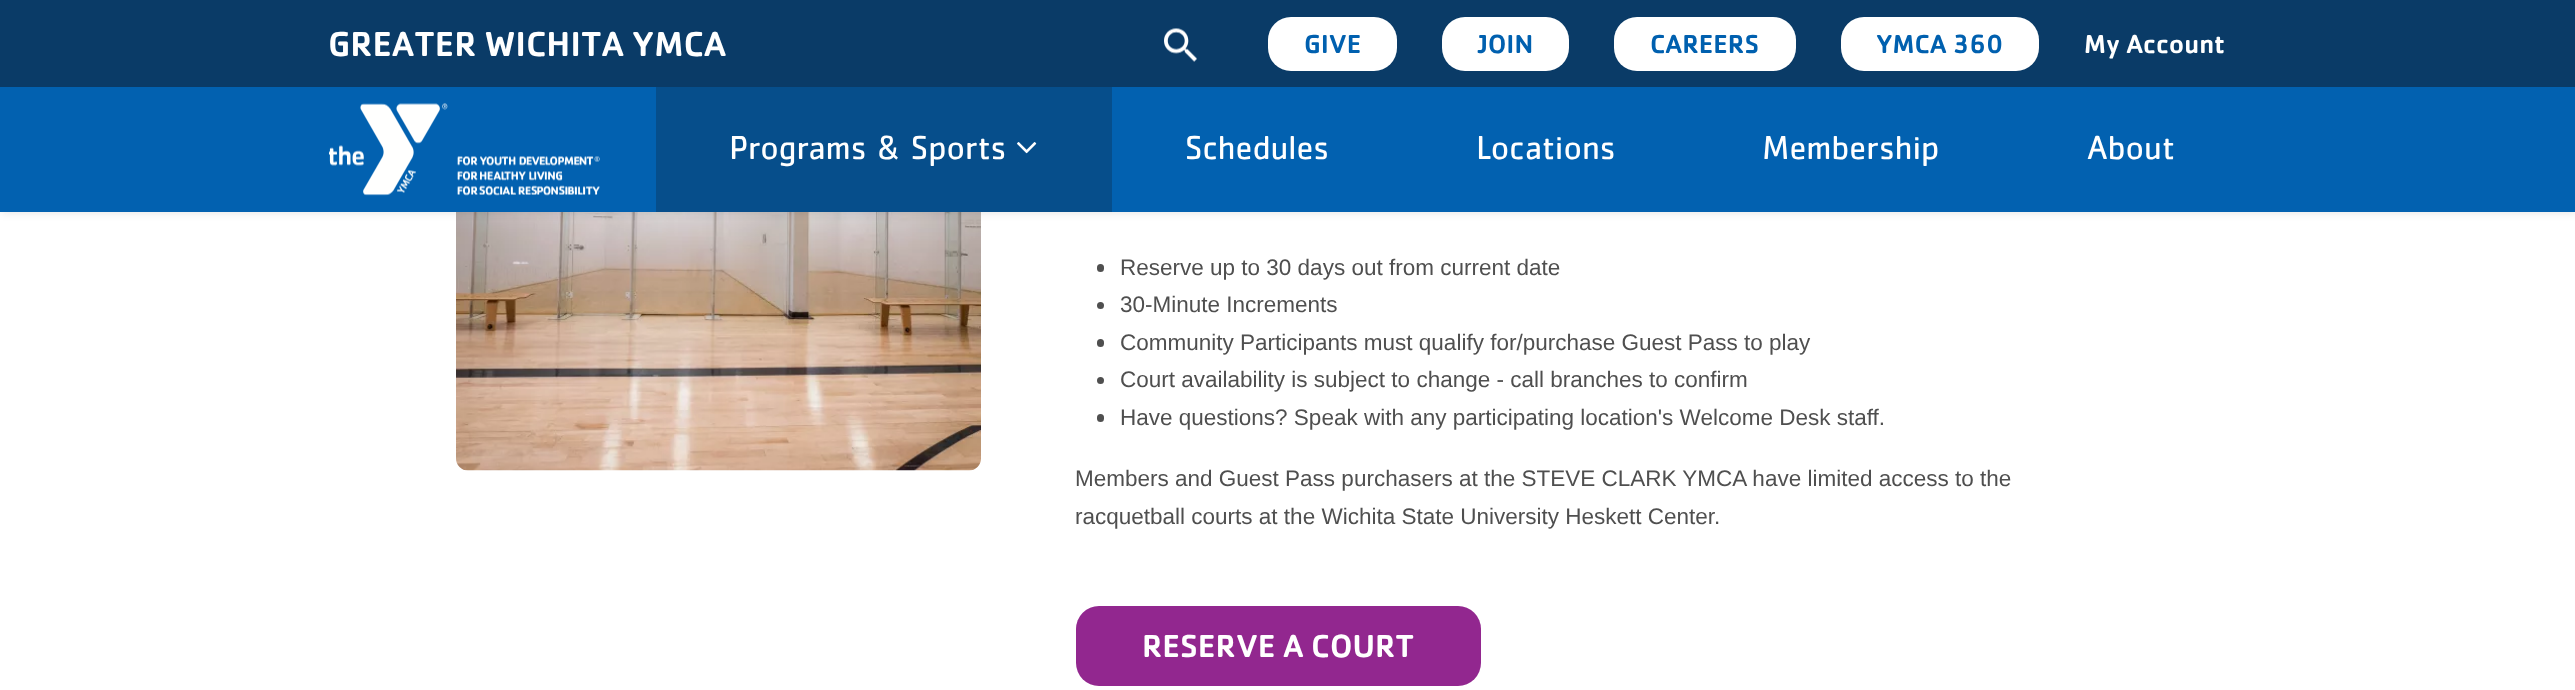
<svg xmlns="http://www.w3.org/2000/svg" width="2575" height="690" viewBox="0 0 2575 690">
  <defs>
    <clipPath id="clip1"><path d="M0 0H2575V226H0ZM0 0H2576V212H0Z" clip-rule="evenodd"/></clipPath>
  </defs>
  <rect width="100%" height="100%" fill="rgb(255,255,255)"/>
  <rect x="0" y="87" width="2575" height="125" fill="rgb(22,108,180)"/>
  <image x="456" y="212" width="525" height="259" href="pic4.png"/>
  <g clip-path="url(#clip1)">
    <rect x="2" y="2" width="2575" height="211" fill="rgba(0,0,0,0.1)" filter="blur(4px)"/>
  </g>
  <rect x="0" y="0" width="2575" height="87" fill="rgb(10,59,103)"/>
  <text x="328" y="56" font-family="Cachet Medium" font-size="36" font-weight="500" fill="rgb(255,255,255)">GREATER WICHITA YMCA</text>
  <image x="1164" y="28" width="33" height="34" href="pic1.png"/>
  <rect x="1268" y="17" width="129" height="54" rx="23" fill="rgb(255,255,255)"/>
  <text x="1304" y="53" font-family="Cachet Medium" font-size="27" font-weight="500" fill="rgb(0,96,175)">GIVE</text>
  <rect x="1442" y="17" width="127" height="54" rx="23" fill="rgb(255,255,255)"/>
  <text x="1478" y="53" font-family="Cachet Medium" font-size="27" font-weight="500" fill="rgb(0,96,175)">JOIN</text>
  <rect x="1614" y="17" width="182" height="54" rx="23" fill="rgb(255,255,255)"/>
  <text x="1650" y="53" font-family="Cachet Medium" font-size="27" font-weight="500" fill="rgb(0,96,175)">CAREERS</text>
  <rect x="1841" y="17" width="198" height="54" rx="23" fill="rgb(255,255,255)"/>
  <text x="1876" y="53" font-family="Cachet Medium" font-size="27" font-weight="500" fill="rgb(0,96,175)">YMCA 360</text>
  <text x="2084" y="53" font-family="Cachet Medium" font-size="27" font-weight="500" fill="rgb(255,255,255)">My Account</text>
  <rect x="0" y="87" width="2575" height="125" fill="rgba(0,96,175,0.9)"/>
  <image x="329" y="103" width="271" height="93" href="pic2.png"/>
  <rect x="656" y="87" width="456" height="125" fill="rgb(6,78,139)"/>
  <text x="729" y="159" font-family="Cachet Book" font-size="34.5" fill="rgb(255,255,255)">Programs &amp; Sports</text>
  <image x="1017" y="142" width="20" height="12" href="pic3.png"/>
  <g font-family="Cachet Book" font-size="34.5" fill="rgb(255,255,255)">
    <text x="1185" y="159">Schedules</text>
    <text x="1476" y="159">Locations</text>
    <text x="1762" y="159">Membership</text>
    <text x="2087" y="159">About</text>
  </g>
  <rect x="1097" y="264" width="7" height="8" rx="3.5" fill="rgb(79,79,79)"/>
  <text x="1120" y="275" font-family="Liberation Sans" font-size="22.5" fill="rgb(79,79,79)">Reserve up to 30 days out from current date</text>
  <circle cx="1100.5" cy="305.5" r="3.5" fill="rgb(79,79,79)"/>
  <text x="1120" y="312" font-family="Liberation Sans" font-size="22.5" fill="rgb(79,79,79)">30-Minute Increments</text>
  <rect x="1097" y="339" width="7" height="8" rx="3.5" fill="rgb(79,79,79)"/>
  <text x="1120" y="350" font-family="Liberation Sans" font-size="22.5" fill="rgb(79,79,79)">Community Participants must qualify for/purchase Guest Pass to play</text>
  <circle cx="1100.5" cy="380.5" r="3.5" fill="rgb(79,79,79)"/>
  <text x="1120" y="387" font-family="Liberation Sans" font-size="22.5" fill="rgb(79,79,79)">Court availability is subject to change - call branches to confirm</text>
  <rect x="1097" y="414" width="7" height="8" rx="3.5" fill="rgb(79,79,79)"/>
  <g font-family="Liberation Sans" font-size="22.5" fill="rgb(79,79,79)">
    <text x="1120" y="425">Have questions? Speak with any participating location's Welcome Desk staff.</text>
    <text>
      <tspan x="1075" y="486">Members and Guest Pass purchasers at the STEVE CLARK YMCA have limited access to the</tspan>
      <tspan x="1075" y="524">racquetball courts at the Wichita State University Heskett Center.</tspan>
    </text>
  </g>
  <rect x="1076" y="606" width="405" height="80" rx="23" fill="rgb(146,39,143)"/>
  <text x="1142" y="657" font-family="Cachet Medium" font-size="33" font-weight="500" fill="rgb(255,255,255)">RESERVE A COURT</text>
</svg>
